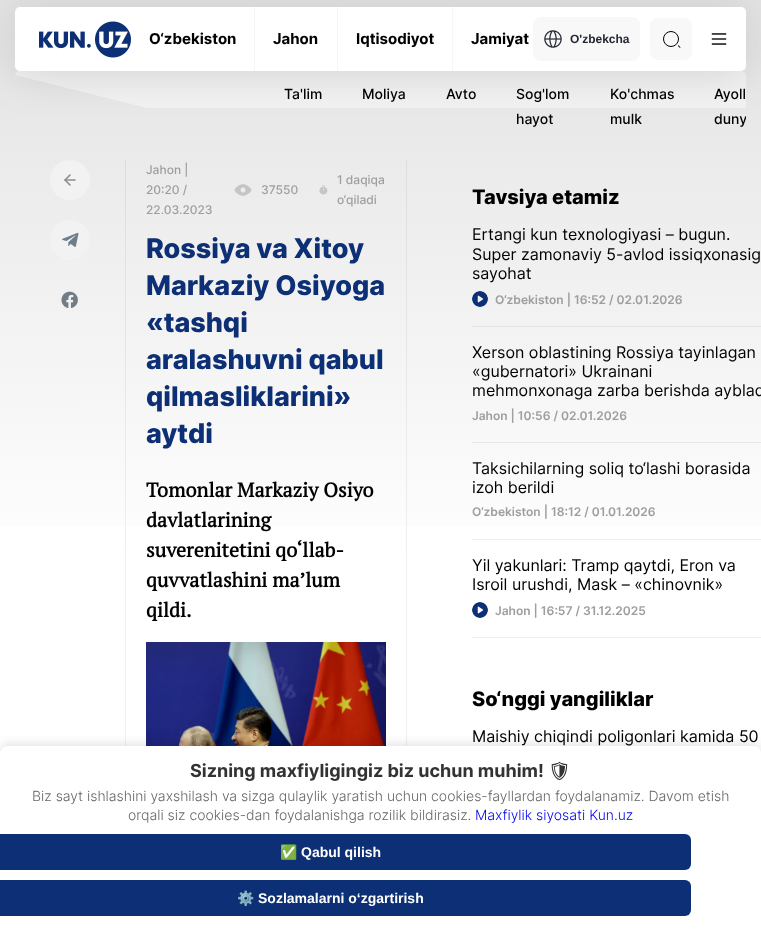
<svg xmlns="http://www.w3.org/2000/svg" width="761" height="931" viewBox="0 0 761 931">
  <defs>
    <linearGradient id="g1" gradientUnits="userSpaceOnUse" x1="380" y1="-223" x2="381" y2="577"><stop offset="0" stop-color="rgb(216,216,216)"/><stop offset="1" stop-color="rgb(255,255,255)"/></linearGradient>
    <linearGradient id="g2" gradientUnits="userSpaceOnUse" x1="380" y1="-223" x2="381" y2="577"><stop offset="0" stop-color="rgb(203,203,203)"/><stop offset="1" stop-color="rgb(240,240,240)"/></linearGradient>
    <clipPath id="clip1"><rect x="15" y="71" width="731" height="68" rx="5"/></clipPath>
  </defs>
  <rect width="100%" height="100%" fill="rgb(255,255,255)"/>
  <rect x="125" y="577" width="1" height="169" fill="rgb(240,240,240)"/>
  <rect x="406" y="577" width="1" height="169" fill="rgb(240,240,240)"/>
  <rect x="0" y="0" width="761" height="526" fill="url(#g1)"/>
  <rect x="125" y="160" width="1" height="417" fill="url(#g2)"/>
  <rect x="406" y="160" width="1" height="417" fill="url(#g2)"/>
  <path d="M20 71C17 71 15 73 15 75L147 108H746V76C746 73 744 71 741 71Z" fill="rgb(242,242,242)"/>
  <rect x="15" y="11" width="731" height="64" rx="5" fill="rgba(0,0,0,0.12)" filter="blur(22px)"/>
  <rect x="15" y="7" width="731" height="64" rx="5" fill="rgb(255,255,255)"/>
  <image x="39" y="21" width="92" height="37" href="pic1.png"/>
  <rect x="254" y="7" width="1" height="64" fill="rgb(245,245,245)"/>
  <text x="149" y="44" font-family="Inter" font-size="15" font-weight="bold" fill="rgb(0,0,0)">O‘zbekiston</text>
  <rect x="337" y="7" width="1" height="64" fill="rgb(245,245,245)"/>
  <text x="273" y="44" font-family="Inter" font-size="15" font-weight="bold" fill="rgb(0,0,0)">Jahon</text>
  <rect x="452" y="7" width="1" height="64" fill="rgb(245,245,245)"/>
  <g font-family="Inter" font-size="15" font-weight="bold" fill="rgb(0,0,0)">
    <text x="356" y="44">Iqtisodiyot</text>
    <text x="471" y="44">Jamiyat</text>
  </g>
  <rect x="533" y="17" width="107" height="44" rx="8" fill="rgb(248,248,248)"/>
  <image x="544" y="30" width="18" height="18" href="pic2.png"/>
  <text x="570" y="43" font-family="Liberation Sans" font-size="12" font-weight="bold" fill="rgb(36,40,51)">O'zbekcha</text>
  <rect x="650" y="18" width="42" height="42" rx="8" fill="rgb(248,248,248)"/>
  <circle cx="671" cy="39" r="7.5" fill="none" stroke="rgb(0,0,0)"/>
  <path d="M678.5 45L680.5 47.5L680 48L678 46Z" fill="rgb(0,0,0)"/>
  <image x="711" y="33" width="16" height="12" href="pic3.png"/>
  <g font-family="Inter" font-size="14" font-weight="500" fill="rgb(0,0,0)">
    <text x="284" y="99">Ta'lim</text>
    <text x="362" y="99">Moliya</text>
    <text x="446" y="99">Avto</text>
    <text>
      <tspan x="516" y="99">Sog'lom</tspan>
      <tspan x="516" y="124">hayot</tspan>
    </text>
    <text>
      <tspan x="610" y="99">Ko'chmas</tspan>
      <tspan x="610" y="124">mulk</tspan>
    </text>
    <text x="714" y="99">Ayoll</text>
  </g>
  <g clip-path="url(#clip1)">
    <text x="714" y="124" font-family="Inter" font-size="14" font-weight="500" fill="rgb(0,0,0)">duny</text>
  </g>
  <circle cx="70" cy="180" r="20" fill="rgb(242,242,242)"/>
  <image x="64" y="174" width="12" height="12" href="pic4.png"/>
  <circle cx="70" cy="240" r="20" fill="rgb(242,242,242)"/>
  <image x="62" y="232" width="17" height="15" href="pic5.png"/>
  <image x="61" y="291" width="17" height="17" href="pic6.png"/>
  <g font-family="Inter" font-size="12" font-weight="500" fill="rgb(158,158,158)">
    <text>
      <tspan x="146" y="174">Jahon |</tspan>
      <tspan x="146" y="194">20:20 /</tspan>
      <tspan x="146" y="214">22.03.2023</tspan>
    </text>
  </g>
  <image x="234" y="184" width="18" height="12" href="pic7.png"/>
  <text x="261" y="194" font-family="Inter" font-size="12" font-weight="500" fill="rgb(158,158,158)">37550</text>
  <image x="319" y="185" width="9" height="10" href="pic8.png"/>
  <g font-family="Inter" font-size="12" font-weight="500" fill="rgb(158,158,158)">
    <text>
      <tspan x="337" y="184">1 daqiqa</tspan>
      <tspan x="337" y="204">o‘qiladi</tspan>
    </text>
  </g>
  <g font-family="Inter" font-size="27" font-weight="800" fill="rgb(12,47,117)">
    <text>
      <tspan x="146" y="258">Rossiya va Xitoy</tspan>
      <tspan x="146" y="295">Markaziy Osiyoga</tspan>
      <tspan x="146" y="332">«tashqi</tspan>
      <tspan x="146" y="369">aralashuvni qabul</tspan>
      <tspan x="146" y="406">qilmasliklarini»</tspan>
      <tspan x="146" y="443">aytdi</tspan>
    </text>
  </g>
  <g font-family="PT Serif" font-size="20" font-weight="bold" fill="rgb(0,0,0)">
    <text>
      <tspan x="146" y="497">Tomonlar Markaziy Osiyo</tspan>
      <tspan x="146" y="527">davlatlarining</tspan>
      <tspan x="146" y="557">suverenitetini qo‘llab-</tspan>
      <tspan x="146" y="587">quvvatlashini ma’lum</tspan>
      <tspan x="146" y="617">qildi.</tspan>
    </text>
  </g>
  <image x="146" y="642" width="240" height="104" href="pic9.png"/>
  <text x="472" y="204" font-family="Inter" font-size="20" font-weight="800" fill="rgb(0,0,0)">Tavsiya etamiz</text>
  <rect x="472" y="326" width="289" height="1" fill="rgb(228,228,228)"/>
  <g font-family="Inter" font-size="16" fill="rgb(0,0,0)">
    <text>
      <tspan x="472" y="240">Ertangi kun texnologiyasi – bugun.</tspan>
      <tspan x="472" y="260">Super zamonaviy 5-avlod issiqxonasig</tspan>
      <tspan x="472" y="279">sayohat</tspan>
    </text>
  </g>
  <image x="472" y="291" width="16" height="16" href="pic10.png"/>
  <text x="495" y="304" font-family="Inter" font-size="12" font-weight="600" fill="rgb(158,158,158)">O‘zbekiston | 16:52 / 02.01.2026</text>
  <rect x="472" y="442" width="289" height="1" fill="rgb(232,232,232)"/>
  <g font-family="Inter" font-size="16" fill="rgb(0,0,0)">
    <text>
      <tspan x="472" y="358">Xerson oblastining Rossiya tayinlagan</tspan>
      <tspan x="472" y="377">«gubernatori» Ukrainani</tspan>
      <tspan x="472" y="396">mehmonxonaga zarba berishda ayblad</tspan>
    </text>
  </g>
  <text x="472" y="420" font-family="Inter" font-size="12" font-weight="600" fill="rgb(158,158,158)">Jahon | 10:56 / 02.01.2026</text>
  <rect x="472" y="539" width="289" height="1" fill="rgb(237,237,237)"/>
  <g font-family="Inter" font-size="16" fill="rgb(0,0,0)">
    <text>
      <tspan x="472" y="474">Taksichilarning soliq to‘lashi borasida</tspan>
      <tspan x="472" y="493">izoh berildi</tspan>
    </text>
  </g>
  <text x="472" y="516" font-family="Inter" font-size="12" font-weight="600" fill="rgb(158,158,158)">O‘zbekiston | 18:12 / 01.01.2026</text>
  <rect x="472" y="637" width="289" height="1" fill="rgb(239,239,239)"/>
  <g font-family="Inter" font-size="16" fill="rgb(0,0,0)">
    <text>
      <tspan x="472" y="571">Yil yakunlari: Tramp qaytdi, Eron va</tspan>
      <tspan x="472" y="590">Isroil urushdi, Mask – «chinovnik»</tspan>
    </text>
  </g>
  <image x="472" y="602" width="16" height="16" href="pic11.png"/>
  <text x="495" y="615" font-family="Inter" font-size="12" font-weight="600" fill="rgb(158,158,158)">Jahon | 16:57 / 31.12.2025</text>
  <text x="472" y="706" font-family="Inter" font-size="20" font-weight="800" fill="rgb(0,0,0)">So‘nggi yangiliklar</text>
  <text x="472" y="742" font-family="Inter" font-size="16" fill="rgb(0,0,0)">Maishiy chiqindi poligonlari kamida 50</text>
  <rect x="0" y="743" width="761" height="185" rx="8" fill="rgba(0,0,0,0.1)" filter="blur(5px)"/>
  <path d="M8 746H753C757.5 746 761 749.5 761 754V931H0V754C0 749.5 3.5 746 8 746Z" fill="rgb(255,255,255)"/>
  <text x="190" y="777" font-family="Inter" font-size="18" font-weight="bold" fill="rgb(51,51,51)">Sizning maxfiyligingiz biz uchun muhim!</text>
  <text x="548" y="777" font-family="Noto Emoji" font-size="18" font-weight="bold" fill="rgb(51,51,51)">🛡</text>
  <g font-family="Inter" font-size="14" font-weight="300" fill="rgb(102,102,102)">
    <text x="32" y="801">Biz sayt ishlashini yaxshilash va sizga qulaylik yaratish uchun cookies-fayllardan foydalanamiz. Davom etish</text>
    <text x="128" y="820">orqali siz cookies-dan foydalanishga rozilik bildirasiz.</text>
  </g>
  <text x="475" y="820" font-family="Inter" font-size="14" font-weight="300" fill="rgb(0,0,238)">Maxfiylik siyosati Kun.uz</text>
  <rect x="-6" y="834" width="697" height="36" rx="6" fill="rgb(12,47,117)"/>
  <text x="280" y="857" font-family="Noto Color Emoji" font-size="14" font-weight="bold" fill="rgb(255,255,255)">✅</text>
  <text x="301" y="857" font-family="Liberation Sans" font-size="14" font-weight="bold" fill="rgb(255,255,255)">Qabul qilish</text>
  <rect x="-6" y="880" width="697" height="36" rx="6" fill="rgb(12,47,117)"/>
  <text x="237" y="903" font-family="Noto Color Emoji" font-size="14" font-weight="bold" fill="rgb(255,255,255)">⚙️</text>
  <text x="258" y="903" font-family="Liberation Sans" font-size="14" font-weight="bold" fill="rgb(255,255,255)">Sozlamalarni o‘zgartirish</text>
</svg>
